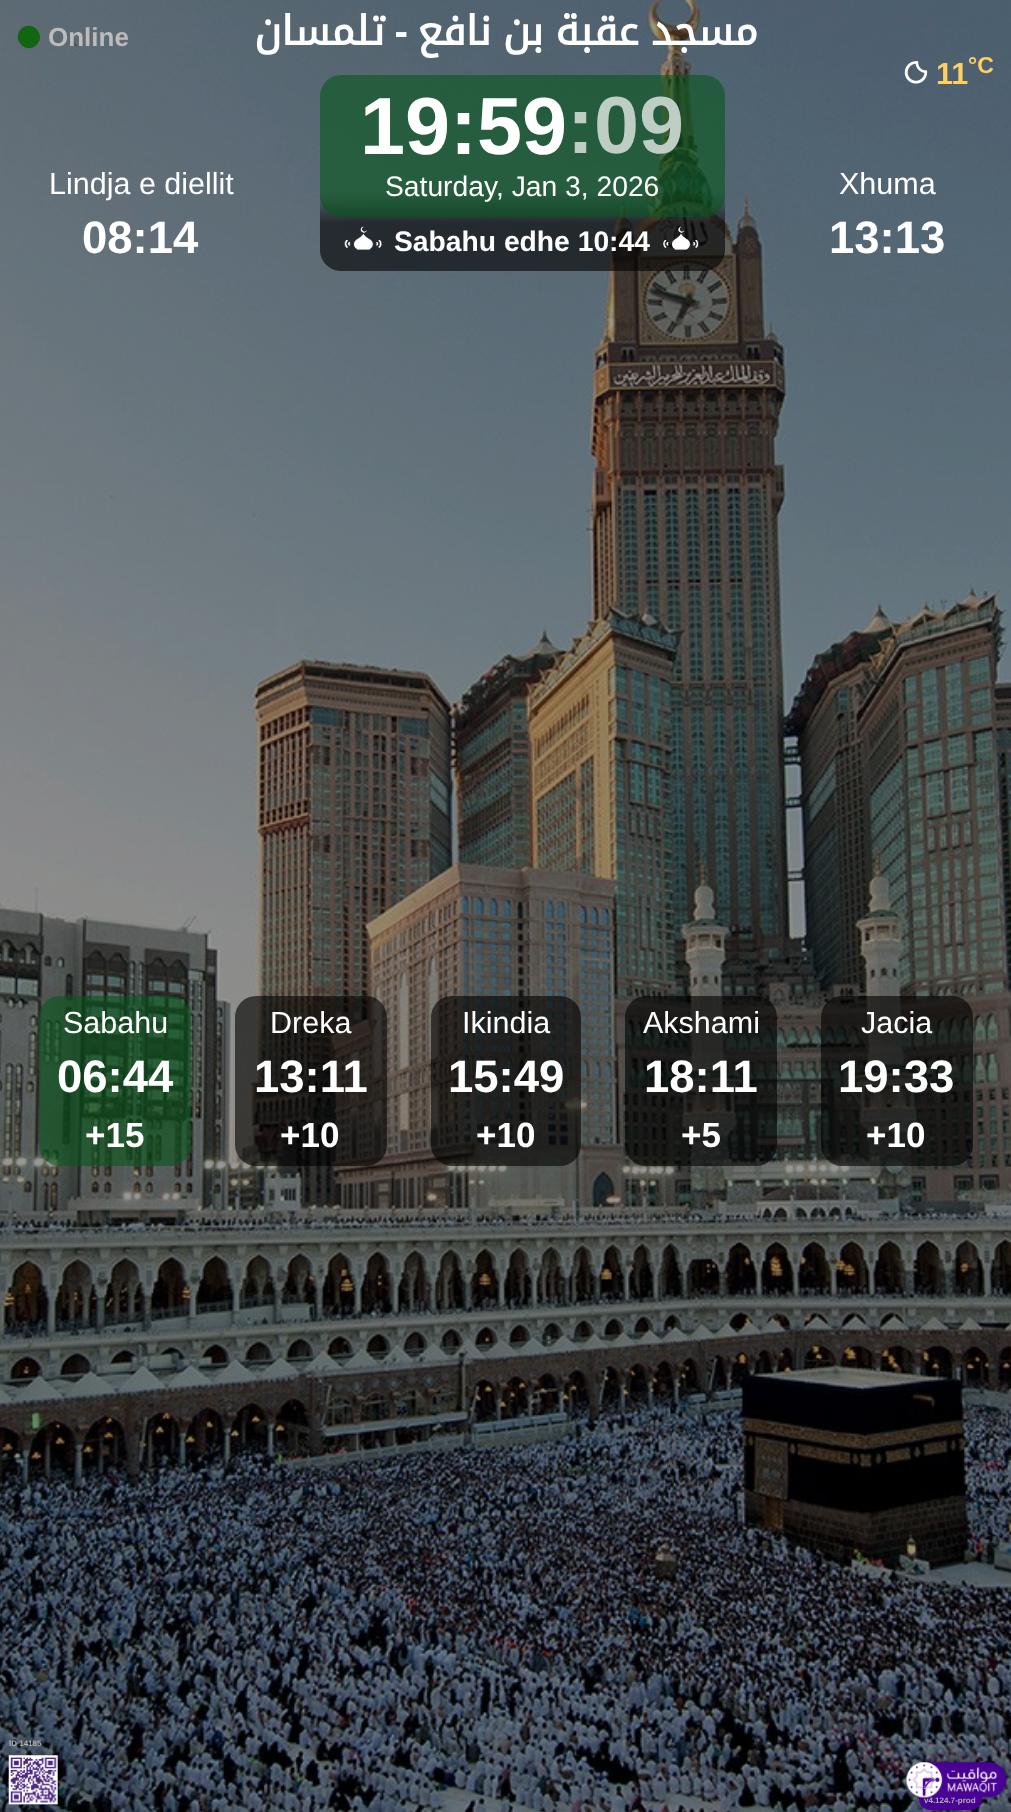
<svg xmlns="http://www.w3.org/2000/svg" width="1011" height="1812" viewBox="0 0 1011 1812">
  <rect width="100%" height="100%" fill="rgb(255,255,255)"/>
  <image x="0" y="0" width="1011" height="1812" href="pic1.png"/>
  <path d="M21 29C31.5 19 47 34.5 36.5 45C26.5 55 11 39.5 21 29Z" fill="rgb(18,102,17)"/>
  <text x="48" y="46" font-family="Liberation Sans" font-size="26" font-weight="bold" fill="rgb(189,187,187)">Online</text>
  <text x="385" y="45" font-family="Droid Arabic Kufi" font-size="40.5" font-weight="bold" direction="rtl" fill="rgb(255,255,255)">تلمسان</text>
  <text x="408" y="45" font-family="Liberation Sans" font-size="40.5" font-weight="bold" direction="rtl" fill="rgb(255,255,255)">-</text>
  <text x="758" y="45" word-spacing="-1.5" font-family="Droid Arabic Kufi" font-size="40.5" font-weight="bold" direction="rtl" fill="rgb(255,255,255)">مسجد عقبة بن نافع</text>
  <image x="904" y="61" width="24" height="23" href="pic2.png"/>
  <text x="936" y="84" font-family="Liberation Sans" font-size="30.5" font-weight="bold" fill="rgb(255,208,95)">11</text>
  <text x="968" y="73" font-family="Liberation Sans" font-size="23" font-weight="bold" fill="rgb(255,208,95)">°C</text>
  <text x="49" y="194" font-family="Liberation Sans" font-size="30.5" fill="rgb(255,255,255)">Lindja e diellit</text>
  <text x="82" y="253" font-family="Liberation Sans" font-size="45.5" font-weight="bold" fill="rgb(255,255,255)">08:14</text>
  <rect x="320" y="75" width="405" height="142" rx="21" fill="rgba(6,87,28,0.6)"/>
  <text x="360" y="154" font-family="Liberation Sans" font-size="81" font-weight="bold" fill="rgb(255,255,255)">19:59</text>
  <text x="567" y="153" font-family="Liberation Sans" font-size="81" font-weight="bold" fill="rgb(190,206,196)">:09</text>
  <text x="385" y="196" font-family="Liberation Sans" font-size="28.25" fill="rgb(255,255,255)">Saturday, Jan 3, 2026</text>
  <image x="344" y="226" width="38" height="24" href="pic3.png"/>
  <text x="394" y="251" font-family="Liberation Sans" font-size="28.25" font-weight="bold" fill="rgb(255,255,255)">Sabahu edhe 10:44</text>
  <image x="663" y="226" width="36" height="24" href="pic4.png"/>
  <text x="839" y="194" font-family="Liberation Sans" font-size="30.5" fill="rgb(255,255,255)">Xhuma</text>
  <text x="829" y="253" font-family="Liberation Sans" font-size="45.5" font-weight="bold" fill="rgb(255,255,255)">13:13</text>
  <rect x="39" y="996" width="152" height="170" rx="21" fill="rgba(6,87,28,0.6)"/>
  <text x="63" y="1033" font-family="Liberation Sans" font-size="30.5" fill="rgb(255,255,255)">Sabahu</text>
  <text x="57" y="1092" font-family="Liberation Sans" font-size="45.5" font-weight="bold" fill="rgb(255,255,255)">06:44</text>
  <text x="85" y="1147" font-family="Liberation Sans" font-size="35" font-weight="bold" fill="rgb(255,255,255)">+15</text>
  <rect x="235" y="996" width="152" height="170" rx="21" fill="rgba(0,0,0,0.6)"/>
  <text x="270" y="1033" font-family="Liberation Sans" font-size="30.5" fill="rgb(255,255,255)">Dreka</text>
  <text x="254" y="1092" font-family="Liberation Sans" font-size="45.5" font-weight="bold" fill="rgb(255,255,255)">13:11</text>
  <text x="280" y="1147" font-family="Liberation Sans" font-size="35" font-weight="bold" fill="rgb(255,255,255)">+10</text>
  <rect x="431" y="996" width="150" height="170" rx="21" fill="rgba(0,0,0,0.6)"/>
  <text x="462" y="1033" font-family="Liberation Sans" font-size="30.5" fill="rgb(255,255,255)">Ikindia</text>
  <text x="448" y="1092" font-family="Liberation Sans" font-size="45.5" font-weight="bold" fill="rgb(255,255,255)">15:49</text>
  <text x="476" y="1147" font-family="Liberation Sans" font-size="35" font-weight="bold" fill="rgb(255,255,255)">+10</text>
  <rect x="625" y="996" width="152" height="170" rx="21" fill="rgba(0,0,0,0.6)"/>
  <text x="643" y="1033" font-family="Liberation Sans" font-size="30.5" fill="rgb(255,255,255)">Akshami</text>
  <text x="644" y="1092" font-family="Liberation Sans" font-size="45.5" font-weight="bold" fill="rgb(255,255,255)">18:11</text>
  <text x="681" y="1147" font-family="Liberation Sans" font-size="35" font-weight="bold" fill="rgb(255,255,255)">+5</text>
  <rect x="821" y="996" width="152" height="170" rx="21" fill="rgba(0,0,0,0.6)"/>
  <text x="861" y="1033" font-family="Liberation Sans" font-size="30.5" fill="rgb(255,255,255)">Jacia</text>
  <text x="838" y="1092" font-family="Liberation Sans" font-size="45.5" font-weight="bold" fill="rgb(255,255,255)">19:33</text>
  <text x="866" y="1147" font-family="Liberation Sans" font-size="35" font-weight="bold" fill="rgb(255,255,255)">+10</text>
  <text x="9" y="1746" font-family="Liberation Sans" font-size="8" font-weight="bold" fill="rgb(173,173,173)">ID 14185</text>
  <image x="8" y="1755" width="50" height="50" href="pic5.png"/>
  <path d="M919 1794H982V1799C982 1805 977 1810 971 1810H930C924 1810 919 1805 919 1799Z" fill="rgb(73,0,148)"/>
  <text x="924" y="1803" font-family="Liberation Sans" font-size="8" font-weight="bold" fill="rgb(173,173,173)">v4.124.7-prod</text>
  <image x="906" y="1762" width="101" height="36" href="pic6.png"/>
</svg>
